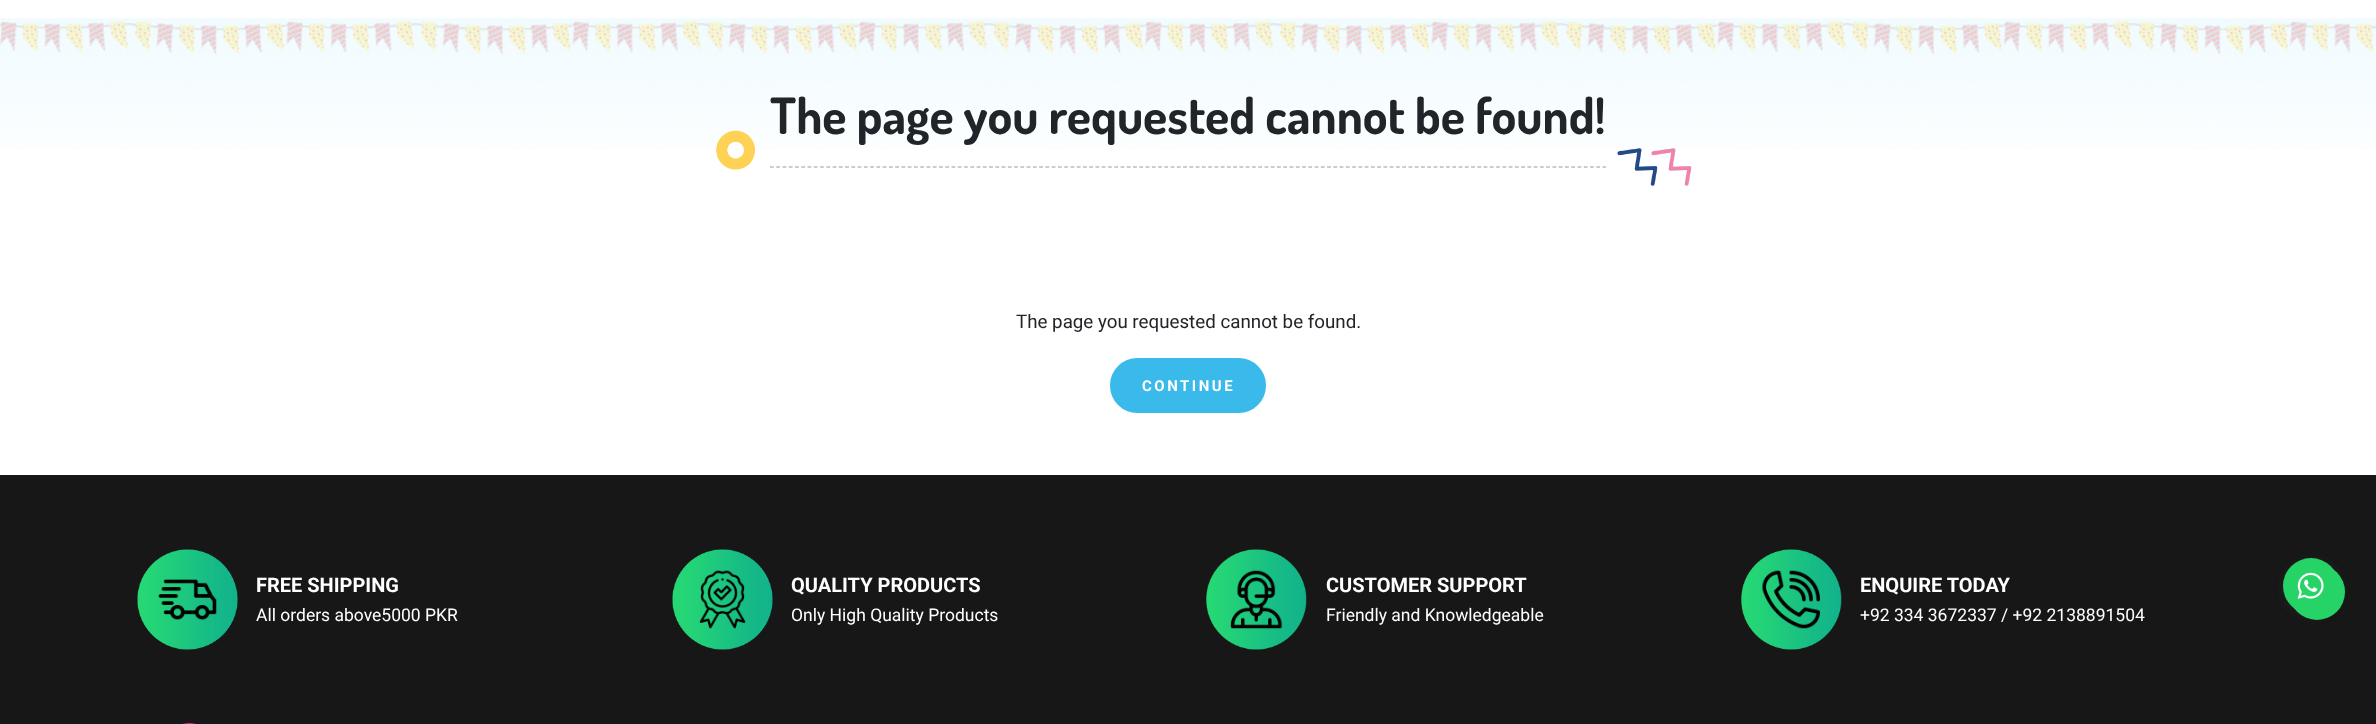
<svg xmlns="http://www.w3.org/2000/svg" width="2376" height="724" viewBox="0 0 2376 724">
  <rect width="100%" height="100%" fill="rgb(255,255,255)"/>
  <image x="0" y="18" width="2376" height="132" href="pic1.png"/>
  <path d="M770 167H1606" fill="none" stroke="rgb(154,154,154)" stroke-width="1.2" stroke-dasharray="3.75 2.51"/>
  <text x="770" y="134" font-family="Dosis" font-size="50" font-weight="bold" fill="rgb(33,37,41)">The page you requested cannot be found!</text>
  <image x="716" y="130" width="39" height="40" href="pic2.png"/>
  <image x="1617" y="148" width="75" height="38" href="pic3.png"/>
  <text x="1016" y="328" font-family="Roboto" font-size="18.75" fill="rgb(33,37,41)">The page you requested cannot be found.</text>
  <rect x="1111.5" y="359.5" width="153" height="52" rx="26" fill="rgb(58,185,235)" stroke="rgb(58,185,235)" stroke-width="3"/>
  <text x="1142" y="391" font-family="Roboto" font-size="15" font-weight="bold" letter-spacing="2.5" fill="rgb(255,255,255)">CONTINUE</text>
  <rect x="0" y="475" width="2376" height="249" fill="rgb(23,23,23)"/>
  <image x="137" y="549" width="101" height="101" href="pic4.png"/>
  <image x="158" y="579" width="59" height="42" href="pic5.png"/>
  <text x="256" y="592" font-family="Roboto" font-size="20" font-weight="bold" fill="rgb(255,255,255)">FREE SHIPPING</text>
  <text x="256" y="621" font-family="Roboto" font-size="17.5" fill="rgb(255,255,255)">All orders above5000 PKR</text>
  <image x="672" y="549" width="101" height="101" href="pic4.png"/>
  <image x="699" y="570" width="47" height="59" href="pic6.png"/>
  <text x="791" y="592" font-family="Roboto" font-size="20" font-weight="bold" fill="rgb(255,255,255)">QUALITY PRODUCTS</text>
  <text x="791" y="621" font-family="Roboto" font-size="17.5" fill="rgb(255,255,255)">Only High Quality Products</text>
  <image x="1206" y="549" width="101" height="101" href="pic7.png"/>
  <image x="1230" y="570" width="53" height="59" href="pic8.png"/>
  <text x="1326" y="592" font-family="Roboto" font-size="20" font-weight="bold" fill="rgb(255,255,255)">CUSTOMER SUPPORT</text>
  <text x="1326" y="621" font-family="Roboto" font-size="17.5" fill="rgb(255,255,255)">Friendly and Knowledgeable</text>
  <image x="1741" y="549" width="101" height="101" href="pic7.png"/>
  <image x="1762" y="570" width="58" height="59" href="pic9.png"/>
  <text x="1860" y="592" font-family="Roboto" font-size="20" font-weight="bold" fill="rgb(255,255,255)">ENQUIRE TODAY</text>
  <text x="1860" y="621" font-family="Roboto" font-size="17.5" fill="rgb(255,255,255)">+92 334 3672337 / +92 2138891504</text>
  <image x="181" y="723" width="16" height="1" href="pic10.png"/>
  <rect x="2284" y="560" width="56" height="56" rx="28" fill="rgba(70,70,70,0.25)" filter="blur(5px)"/>
  <circle cx="2311" cy="586" r="28" fill="rgb(37,211,102)"/>
  <circle cx="2317" cy="592" r="28" fill="rgb(37,211,102)"/>
  <image x="2297" y="572" width="27" height="27" href="pic11.png"/>
</svg>
